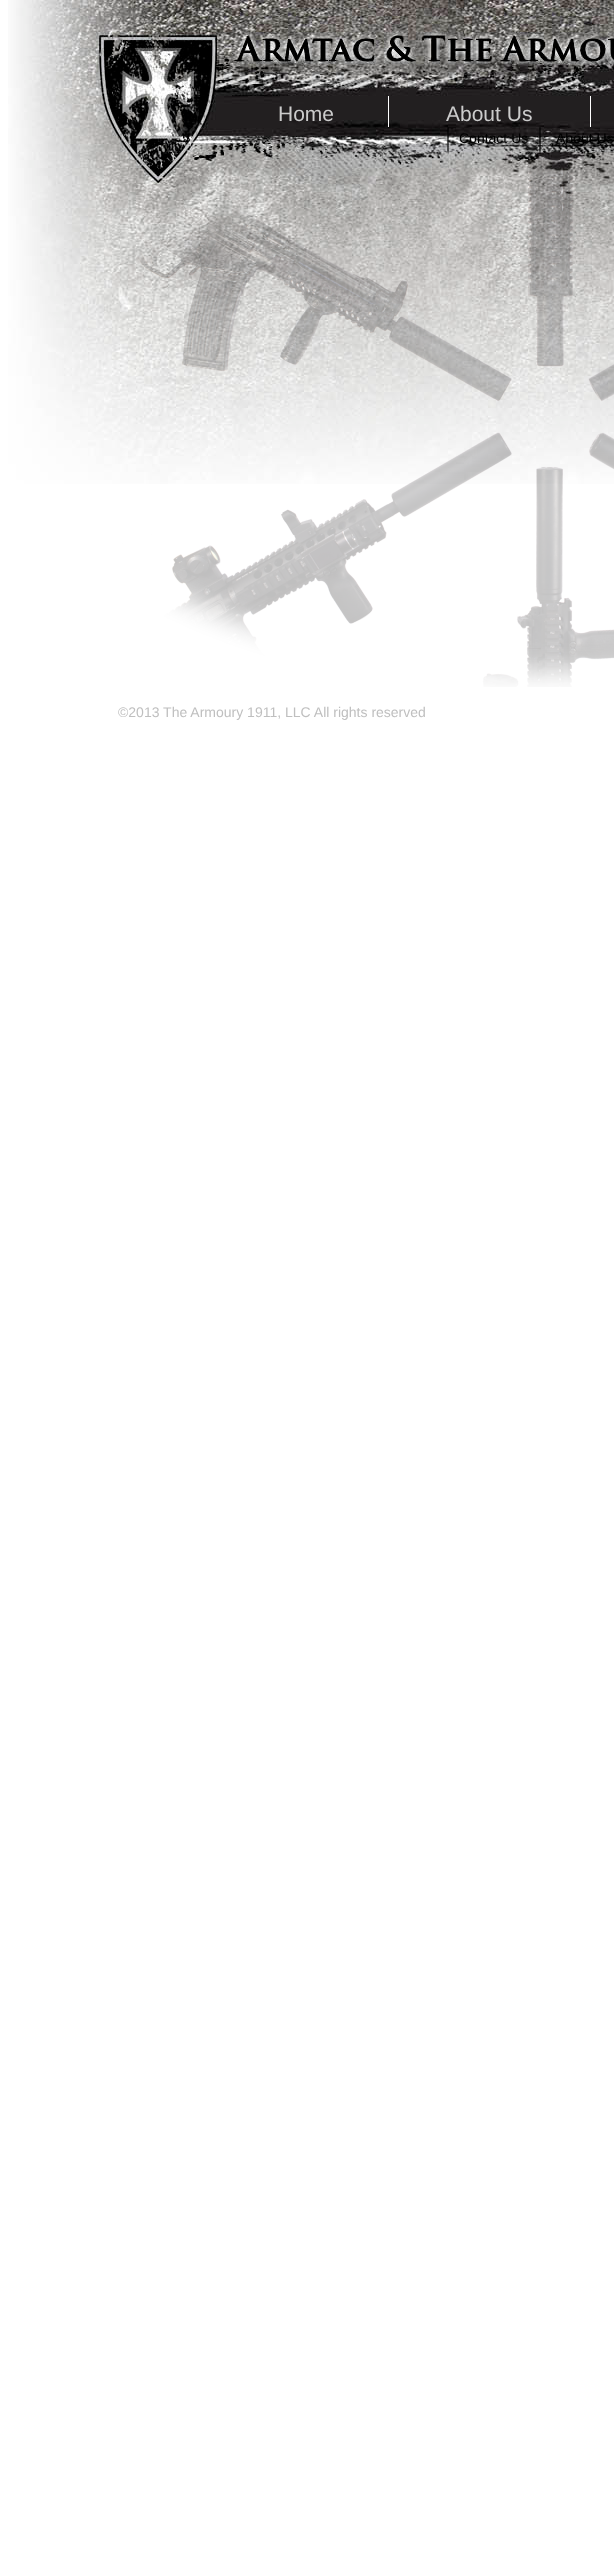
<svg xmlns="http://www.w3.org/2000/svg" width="614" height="2562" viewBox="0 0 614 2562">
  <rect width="100%" height="100%" fill="rgb(255,255,255)"/>
  <image x="8" y="0" width="606" height="484" href="pic1.png"/>
  <rect x="388" y="96" width="1" height="31" fill="rgb(255,255,255)"/>
  <g font-family="Liberation Sans" font-size="21" fill="rgb(204,204,204)">
    <text x="278" y="121">Home</text>
    <text x="446" y="121">About Us</text>
  </g>
  <rect x="590" y="96" width="1" height="31" fill="rgb(255,255,255)"/>
  <rect x="447" y="127" width="2" height="25" rx="1" fill="rgba(0,0,0,0.6)"/>
  <text x="459" y="143" font-family="Liberation Sans" font-size="14" fill="rgb(0,0,0)">Contact Us</text>
  <rect x="539" y="127" width="2" height="25" rx="1" fill="rgba(0,0,0,0.6)"/>
  <text x="556" y="143" font-family="Liberation Sans" font-size="14" fill="rgb(0,0,0)">About Us</text>
  <image x="114" y="153" width="500" height="534" href="pic2.png"/>
  <text x="118" y="717" font-family="Liberation Sans" font-size="14" fill="rgb(191,191,191)">©2013 The Armoury 1911, LLC All rights reserved</text>
</svg>
